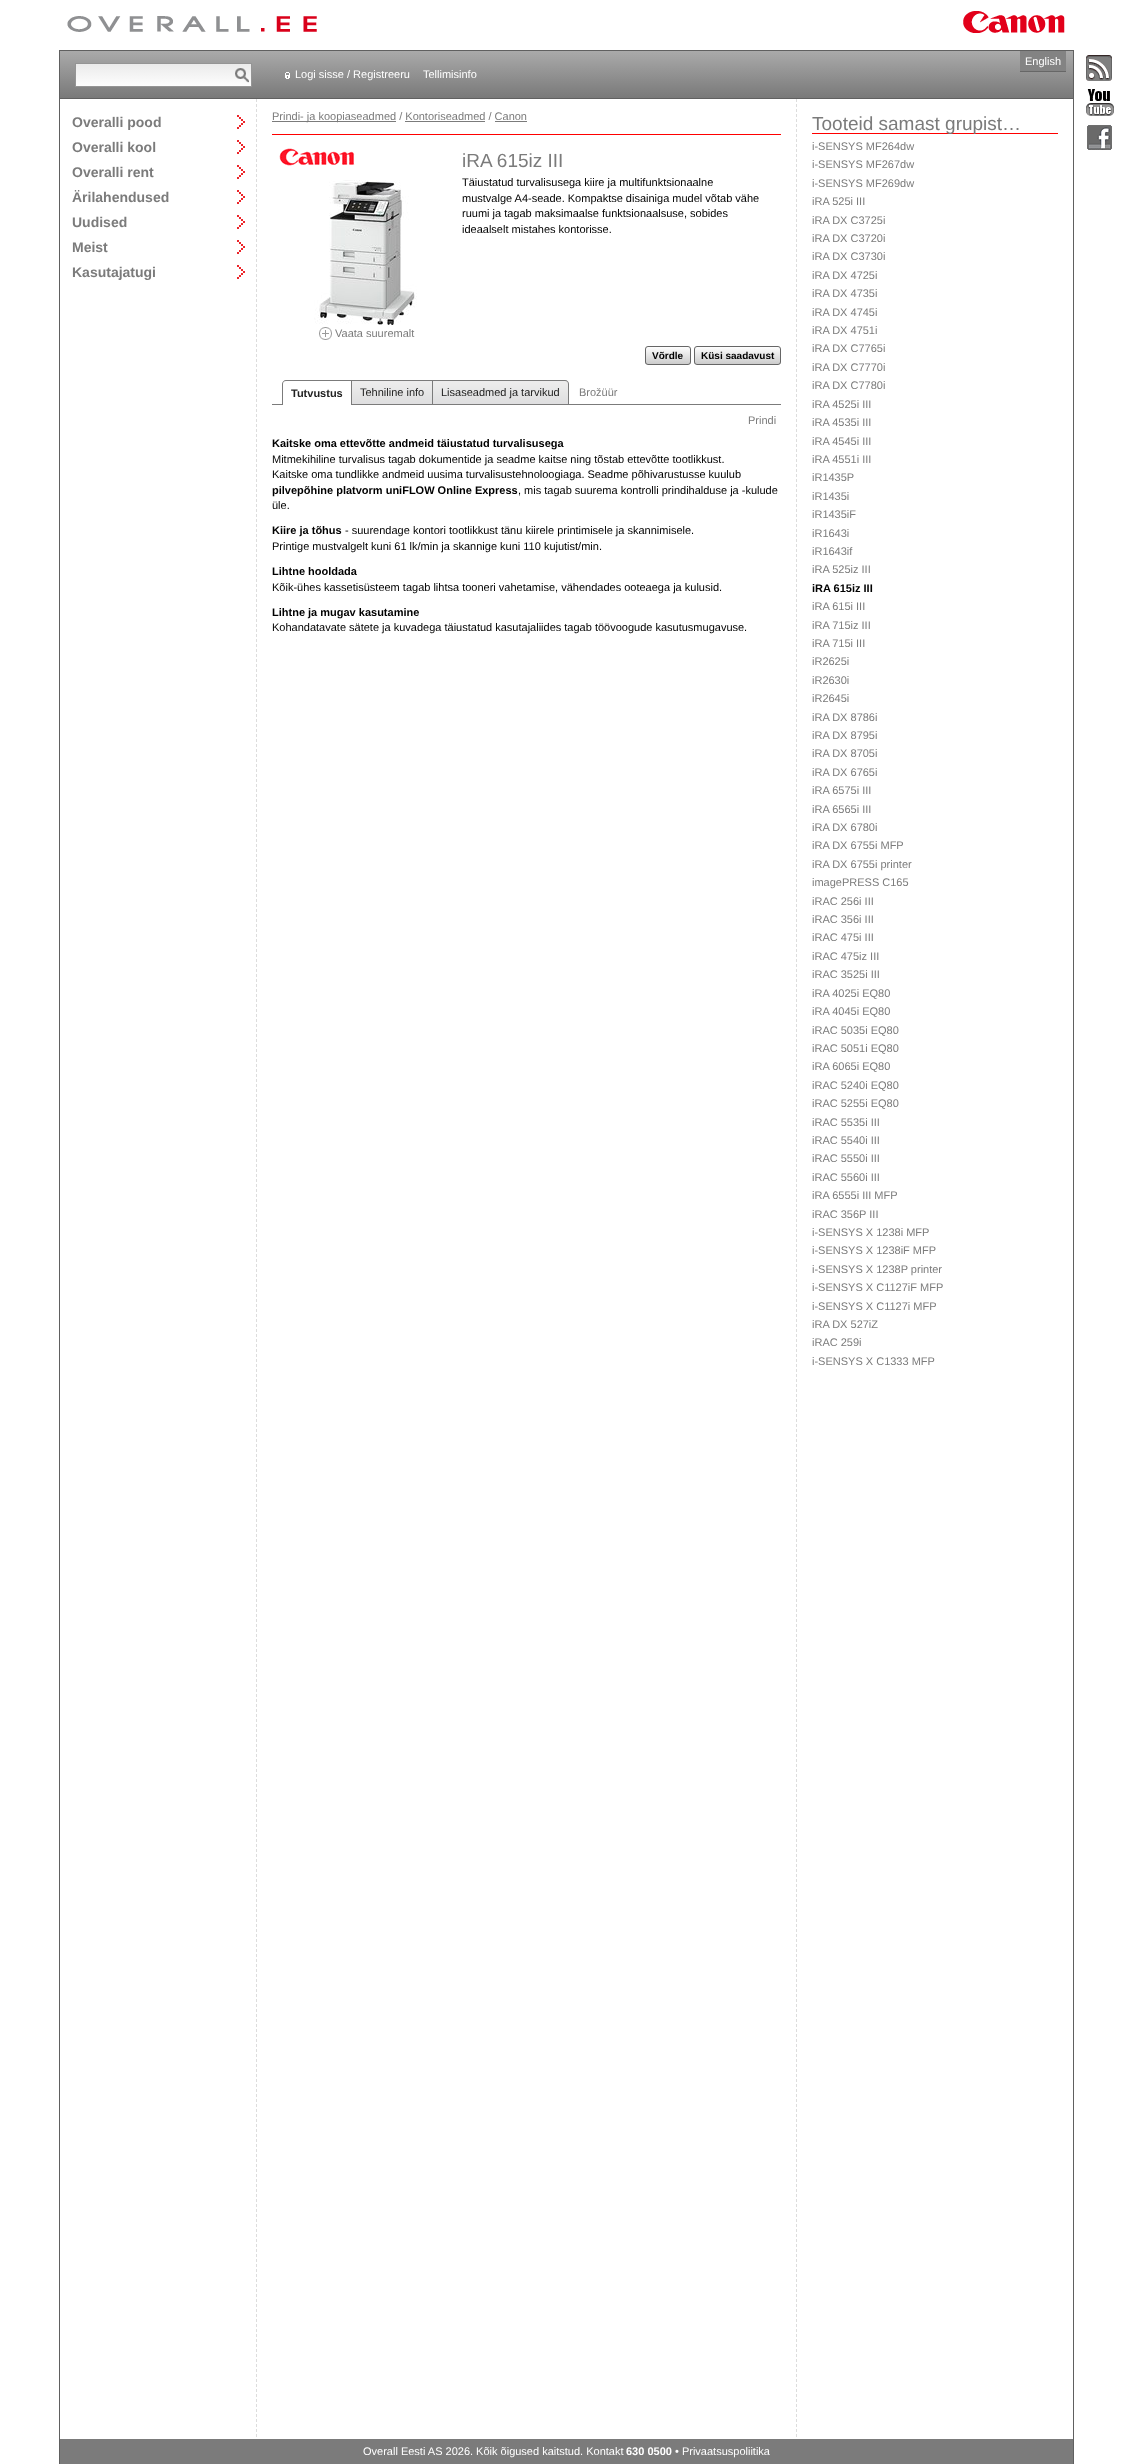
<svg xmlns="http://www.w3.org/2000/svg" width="1133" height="2464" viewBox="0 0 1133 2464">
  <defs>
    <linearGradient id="g1" gradientUnits="userSpaceOnUse" x1="567" y1="51" x2="567" y2="98"><stop offset="0" stop-color="rgb(170,170,170)"/><stop offset="1" stop-color="rgb(121,121,121)"/></linearGradient>
    <linearGradient id="g2" gradientUnits="userSpaceOnUse" x1="164" y1="64" x2="164" y2="86"><stop offset="0" stop-color="rgb(235,235,235)"/><stop offset="1" stop-color="rgb(253,253,253)"/></linearGradient>
    <clipPath id="clip1"><rect x="645" y="346" width="46" height="19" rx="3"/></clipPath>
    <linearGradient id="g3" gradientUnits="userSpaceOnUse" x1="646" y1="347" x2="646" y2="364"><stop offset="0" stop-color="rgb(254,254,254)"/><stop offset="1" stop-color="rgb(204,204,204)"/></linearGradient>
    <clipPath id="clip2"><rect x="694" y="346" width="87" height="19" rx="3"/></clipPath>
    <linearGradient id="g4" gradientUnits="userSpaceOnUse" x1="695" y1="347" x2="695" y2="364"><stop offset="0" stop-color="rgb(254,254,254)"/><stop offset="1" stop-color="rgb(204,204,204)"/></linearGradient>
  </defs>
  <rect width="100%" height="100%" fill="rgb(255,255,255)"/>
  <image x="67" y="16" width="250" height="16" href="pic1.png"/>
  <image x="963" y="11" width="102" height="22" href="pic2.png"/>
  <rect x="60" y="51" width="1013" height="47" fill="url(#g1)"/>
  <rect x="59.5" y="50.5" width="1014" height="48" fill="none" stroke="rgb(96,96,96)"/>
  <rect x="76" y="64" width="175" height="22" fill="url(#g2)"/>
  <rect x="75.5" y="63.5" width="176" height="23" fill="none" stroke="rgb(149,149,149)"/>
  <image x="235" y="68" width="14" height="15" href="pic3.png"/>
  <image x="285" y="72" width="5" height="7" href="pic4.png"/>
  <g font-family="Liberation Sans" font-size="11" fill="rgb(255,255,255)">
    <text x="295" y="78">Logi sisse / Registreeru</text>
    <text x="423" y="78">Tellimisinfo</text>
  </g>
  <rect x="1020" y="51" width="46" height="20" fill="rgb(131,131,131)"/>
  <rect x="1020" y="71" width="46" height="1" fill="rgb(103,103,103)"/>
  <text x="1025" y="65" font-family="Liberation Sans" font-size="11" fill="rgb(255,255,255)">English</text>
  <path d="M256.5 99V2439" fill="none" stroke="rgb(221,221,221)" stroke-dasharray="3 2"/>
  <rect x="59" y="99" width="1" height="2365" fill="rgb(96,96,96)"/>
  <image x="237" y="115" width="8" height="14" href="pic5.png"/>
  <text x="72" y="127" font-family="Liberation Sans" font-size="14" font-weight="bold" fill="rgb(123,123,123)">Overalli pood</text>
  <image x="237" y="140" width="8" height="14" href="pic5.png"/>
  <text x="72" y="152" font-family="Liberation Sans" font-size="14" font-weight="bold" fill="rgb(123,123,123)">Overalli kool</text>
  <image x="237" y="165" width="8" height="14" href="pic5.png"/>
  <text x="72" y="177" font-family="Liberation Sans" font-size="14" font-weight="bold" fill="rgb(123,123,123)">Overalli rent</text>
  <image x="237" y="190" width="8" height="14" href="pic5.png"/>
  <text x="72" y="202" font-family="Liberation Sans" font-size="14" font-weight="bold" fill="rgb(123,123,123)">Ärilahendused</text>
  <image x="237" y="215" width="8" height="14" href="pic5.png"/>
  <text x="72" y="227" font-family="Liberation Sans" font-size="14" font-weight="bold" fill="rgb(123,123,123)">Uudised</text>
  <image x="237" y="240" width="8" height="14" href="pic5.png"/>
  <text x="72" y="252" font-family="Liberation Sans" font-size="14" font-weight="bold" fill="rgb(123,123,123)">Meist</text>
  <image x="237" y="265" width="8" height="14" href="pic5.png"/>
  <text x="72" y="277" font-family="Liberation Sans" font-size="14" font-weight="bold" fill="rgb(123,123,123)">Kasutajatugi</text>
  <path d="M796.5 99V2439" fill="none" stroke="rgb(221,221,221)" stroke-dasharray="3 2"/>
  <rect x="272" y="121" width="124" height="1" fill="rgb(123,123,123)"/>
  <text x="272" y="120" font-family="Liberation Sans" font-size="11" fill="rgb(123,123,123)">Prindi- ja koopiaseadmed / Kontoriseadmed / Canon</text>
  <rect x="405" y="121" width="80" height="1" fill="rgb(123,123,123)"/>
  <rect x="495" y="121" width="32" height="1" fill="rgb(123,123,123)"/>
  <rect x="272" y="134" width="509" height="1" fill="rgb(255,0,0)"/>
  <text x="462" y="167" font-family="Liberation Sans" font-size="19" fill="rgb(123,123,123)">iRA 615iz III</text>
  <g font-family="Liberation Sans" font-size="11" fill="rgb(0,0,0)">
    <text>
      <tspan x="462" y="186">Täiustatud turvalisusega kiire ja multifunktsionaalne</tspan>
      <tspan x="462" y="202">mustvalge A4-seade. Kompaktse disainiga mudel võtab vähe</tspan>
      <tspan x="462" y="217">ruumi ja tagab maksimaalse funktsionaalsuse, sobides</tspan>
      <tspan x="462" y="233">ideaalselt mistahes kontorisse.</tspan>
    </text>
  </g>
  <image x="279" y="148" width="76" height="18" href="pic6.png"/>
  <image x="314" y="180" width="103" height="145" href="pic7.png"/>
  <image x="319" y="327" width="13" height="13" href="pic8.png"/>
  <text x="335" y="337" font-family="Liberation Sans" font-size="11" fill="rgb(123,123,123)">Vaata suuremalt</text>
  <g clip-path="url(#clip1)">
    <rect x="645" y="347" width="46" height="17" fill="url(#g3)"/>
  </g>
  <rect x="645.5" y="346.5" width="45" height="18" rx="2.5" fill="none" stroke="rgb(102,102,102)"/>
  <text x="652" y="359" font-family="Liberation Sans" font-size="10" font-weight="bold" fill="rgb(0,0,0)">Võrdle</text>
  <g clip-path="url(#clip2)">
    <rect x="694" y="347" width="87" height="17" fill="url(#g4)"/>
  </g>
  <rect x="694.5" y="346.5" width="86" height="18" rx="2.5" fill="none" stroke="rgb(102,102,102)"/>
  <text x="701" y="359" font-family="Liberation Sans" font-size="10" font-weight="bold" fill="rgb(0,0,0)">Küsi saadavust</text>
  <rect x="272" y="404" width="509" height="1" fill="rgb(123,123,123)"/>
  <path d="M286 381H351V405H283V384C283 382.5 284.5 381 286 381Z" fill="rgb(255,255,255)"/>
  <rect x="351" y="380" width="82" height="1" fill="rgb(123,123,123)"/>
  <path d="M286 380H352V405H282V384C282 382 284 380 286 380ZM286 381H351V405H283V384C283 382 284 381 286 381Z" fill="rgb(123,123,123)" fill-rule="evenodd"/>
  <text x="291" y="397" font-family="Liberation Sans" font-size="11" font-weight="bold" fill="rgb(34,34,34)">Tutvustus</text>
  <image x="352" y="381" width="80" height="23" href="pic9.png"/>
  <text x="360" y="396" font-family="Liberation Sans" font-size="11" fill="rgb(34,34,34)">Tehniline info</text>
  <image x="433" y="380" width="136" height="24" href="pic10.png"/>
  <path d="M432 380H565C567 380 569 382 569 384V404H432ZM433 381H565C567 381 568 382 568 384V404H433Z" fill="rgb(123,123,123)" fill-rule="evenodd"/>
  <text x="441" y="396" font-family="Liberation Sans" font-size="11" fill="rgb(34,34,34)">Lisaseadmed ja tarvikud</text>
  <g font-family="Liberation Sans" font-size="11" fill="rgb(123,123,123)">
    <text x="579" y="396">Brožüür</text>
    <text x="748" y="424">Prindi</text>
  </g>
  <text x="272" y="447" font-family="Liberation Sans" font-size="11" font-weight="bold" fill="rgb(0,0,0)">Kaitske oma ettevõtte andmeid täiustatud turvalisusega</text>
  <g font-family="Liberation Sans" font-size="11" fill="rgb(0,0,0)">
    <text>
      <tspan x="272" y="463">Mitmekihiline turvalisus tagab dokumentide ja seadme kaitse ning tõstab ettevõtte tootlikkust.</tspan>
      <tspan x="272" y="478">Kaitske oma tundlikke andmeid uusima turvalisustehnoloogiaga. Seadme põhivarustusse kuulub</tspan>
    </text>
  </g>
  <text x="272" y="494" font-family="Liberation Sans" font-size="11" font-weight="bold" fill="rgb(0,0,0)">pilvepõhine platvorm uniFLOW Online Express</text>
  <g font-family="Liberation Sans" font-size="11" fill="rgb(0,0,0)">
    <text x="518" y="494">, mis tagab suurema kontrolli prindihalduse ja -kulude</text>
    <text x="272" y="509">üle.</text>
  </g>
  <text x="272" y="534" font-family="Liberation Sans" font-size="11" font-weight="bold" fill="rgb(0,0,0)">Kiire ja tõhus</text>
  <g font-family="Liberation Sans" font-size="11" fill="rgb(0,0,0)">
    <text x="345" y="534">- suurendage kontori tootlikkust tänu kiirele printimisele ja skannimisele.</text>
    <text x="272" y="550">Printige mustvalgelt kuni 61 lk/min ja skannige kuni 110 kujutist/min.</text>
  </g>
  <text x="272" y="575" font-family="Liberation Sans" font-size="11" font-weight="bold" fill="rgb(0,0,0)">Lihtne hooldada</text>
  <text x="272" y="591" font-family="Liberation Sans" font-size="11" fill="rgb(0,0,0)">Kõik-ühes kassetisüsteem tagab lihtsa tooneri vahetamise, vähendades ooteaega ja kulusid.</text>
  <text x="272" y="616" font-family="Liberation Sans" font-size="11" font-weight="bold" fill="rgb(0,0,0)">Lihtne ja mugav kasutamine</text>
  <text x="272" y="631" font-family="Liberation Sans" font-size="11" fill="rgb(0,0,0)">Kohandatavate sätete ja kuvadega täiustatud kasutajaliides tagab töövoogude kasutusmugavuse.</text>
  <rect x="1073" y="99" width="1" height="2365" fill="rgb(96,96,96)"/>
  <rect x="812" y="133" width="246" height="1" fill="rgb(255,0,0)"/>
  <text x="812" y="130" font-family="Liberation Sans" font-size="19" fill="rgb(123,123,123)">Tooteid samast grupist…</text>
  <g font-family="Liberation Sans" font-size="11" fill="rgb(123,123,123)">
    <text>
      <tspan x="812" y="150">i-SENSYS MF264dw</tspan>
      <tspan x="812" y="168">i-SENSYS MF267dw</tspan>
      <tspan x="812" y="187">i-SENSYS MF269dw</tspan>
      <tspan x="812" y="205">iRA 525i III</tspan>
      <tspan x="812" y="224">iRA DX C3725i</tspan>
      <tspan x="812" y="242">iRA DX C3720i</tspan>
      <tspan x="812" y="260">iRA DX C3730i</tspan>
      <tspan x="812" y="279">iRA DX 4725i</tspan>
      <tspan x="812" y="297">iRA DX 4735i</tspan>
      <tspan x="812" y="316">iRA DX 4745i</tspan>
      <tspan x="812" y="334">iRA DX 4751i</tspan>
      <tspan x="812" y="352">iRA DX C7765i</tspan>
      <tspan x="812" y="371">iRA DX C7770i</tspan>
      <tspan x="812" y="389">iRA DX C7780i</tspan>
      <tspan x="812" y="408">iRA 4525i III</tspan>
      <tspan x="812" y="426">iRA 4535i III</tspan>
      <tspan x="812" y="445">iRA 4545i III</tspan>
      <tspan x="812" y="463">iRA 4551i III</tspan>
      <tspan x="812" y="481">iR1435P</tspan>
      <tspan x="812" y="500">iR1435i</tspan>
      <tspan x="812" y="518">iR1435iF</tspan>
      <tspan x="812" y="537">iR1643i</tspan>
      <tspan x="812" y="555">iR1643if</tspan>
      <tspan x="812" y="573">iRA 525iz III</tspan>
    </text>
  </g>
  <text x="812" y="592" font-family="Liberation Sans" font-size="11" font-weight="bold" fill="rgb(0,0,0)">iRA 615iz III</text>
  <g font-family="Liberation Sans" font-size="11" fill="rgb(123,123,123)">
    <text>
      <tspan x="812" y="610">iRA 615i III</tspan>
      <tspan x="812" y="629">iRA 715iz III</tspan>
      <tspan x="812" y="647">iRA 715i III</tspan>
      <tspan x="812" y="665">iR2625i</tspan>
      <tspan x="812" y="684">iR2630i</tspan>
      <tspan x="812" y="702">iR2645i</tspan>
      <tspan x="812" y="721">iRA DX 8786i</tspan>
      <tspan x="812" y="739">iRA DX 8795i</tspan>
      <tspan x="812" y="757">iRA DX 8705i</tspan>
      <tspan x="812" y="776">iRA DX 6765i</tspan>
      <tspan x="812" y="794">iRA 6575i III</tspan>
      <tspan x="812" y="813">iRA 6565i III</tspan>
      <tspan x="812" y="831">iRA DX 6780i</tspan>
      <tspan x="812" y="849">iRA DX 6755i MFP</tspan>
      <tspan x="812" y="868">iRA DX 6755i printer</tspan>
      <tspan x="812" y="886">imagePRESS C165</tspan>
      <tspan x="812" y="905">iRAC 256i III</tspan>
      <tspan x="812" y="923">iRAC 356i III</tspan>
      <tspan x="812" y="941">iRAC 475i III</tspan>
      <tspan x="812" y="960">iRAC 475iz III</tspan>
      <tspan x="812" y="978">iRAC 3525i III</tspan>
      <tspan x="812" y="997">iRA 4025i EQ80</tspan>
      <tspan x="812" y="1015">iRA 4045i EQ80</tspan>
      <tspan x="812" y="1034">iRAC 5035i EQ80</tspan>
      <tspan x="812" y="1052">iRAC 5051i EQ80</tspan>
      <tspan x="812" y="1070">iRA 6065i EQ80</tspan>
      <tspan x="812" y="1089">iRAC 5240i EQ80</tspan>
      <tspan x="812" y="1107">iRAC 5255i EQ80</tspan>
      <tspan x="812" y="1126">iRAC 5535i III</tspan>
      <tspan x="812" y="1144">iRAC 5540i III</tspan>
      <tspan x="812" y="1162">iRAC 5550i III</tspan>
      <tspan x="812" y="1181">iRAC 5560i III</tspan>
      <tspan x="812" y="1199">iRA 6555i III MFP</tspan>
      <tspan x="812" y="1218">iRAC 356P III</tspan>
      <tspan x="812" y="1236">i-SENSYS X 1238i MFP</tspan>
      <tspan x="812" y="1254">i-SENSYS X 1238iF MFP</tspan>
      <tspan x="812" y="1273">i-SENSYS X 1238P printer</tspan>
      <tspan x="812" y="1291">i-SENSYS X C1127iF MFP</tspan>
      <tspan x="812" y="1310">i-SENSYS X C1127i MFP</tspan>
      <tspan x="812" y="1328">iRA DX 527iZ</tspan>
      <tspan x="812" y="1346">iRAC 259i</tspan>
      <tspan x="812" y="1365">i-SENSYS X C1333 MFP</tspan>
    </text>
  </g>
  <rect x="60" y="2439" width="1013" height="25" fill="rgb(123,123,123)"/>
  <text x="363" y="2455" font-family="Liberation Sans" font-size="11" fill="rgb(255,255,255)">Overall Eesti AS 2026. Kõik õigused kaitstud. Kontakt</text>
  <text x="626" y="2455" font-family="Liberation Sans" font-size="11" font-weight="bold" fill="rgb(255,255,255)">630 0500</text>
  <text x="675" y="2455" font-family="Liberation Sans" font-size="11" fill="rgb(255,255,255)">• Privaatsuspoliitika</text>
  <image x="1086" y="55" width="26" height="26" href="pic11.png"/>
  <image x="1086" y="89" width="28" height="27" href="pic12.png"/>
  <image x="1087" y="125" width="25" height="25" href="pic13.png"/>
</svg>
